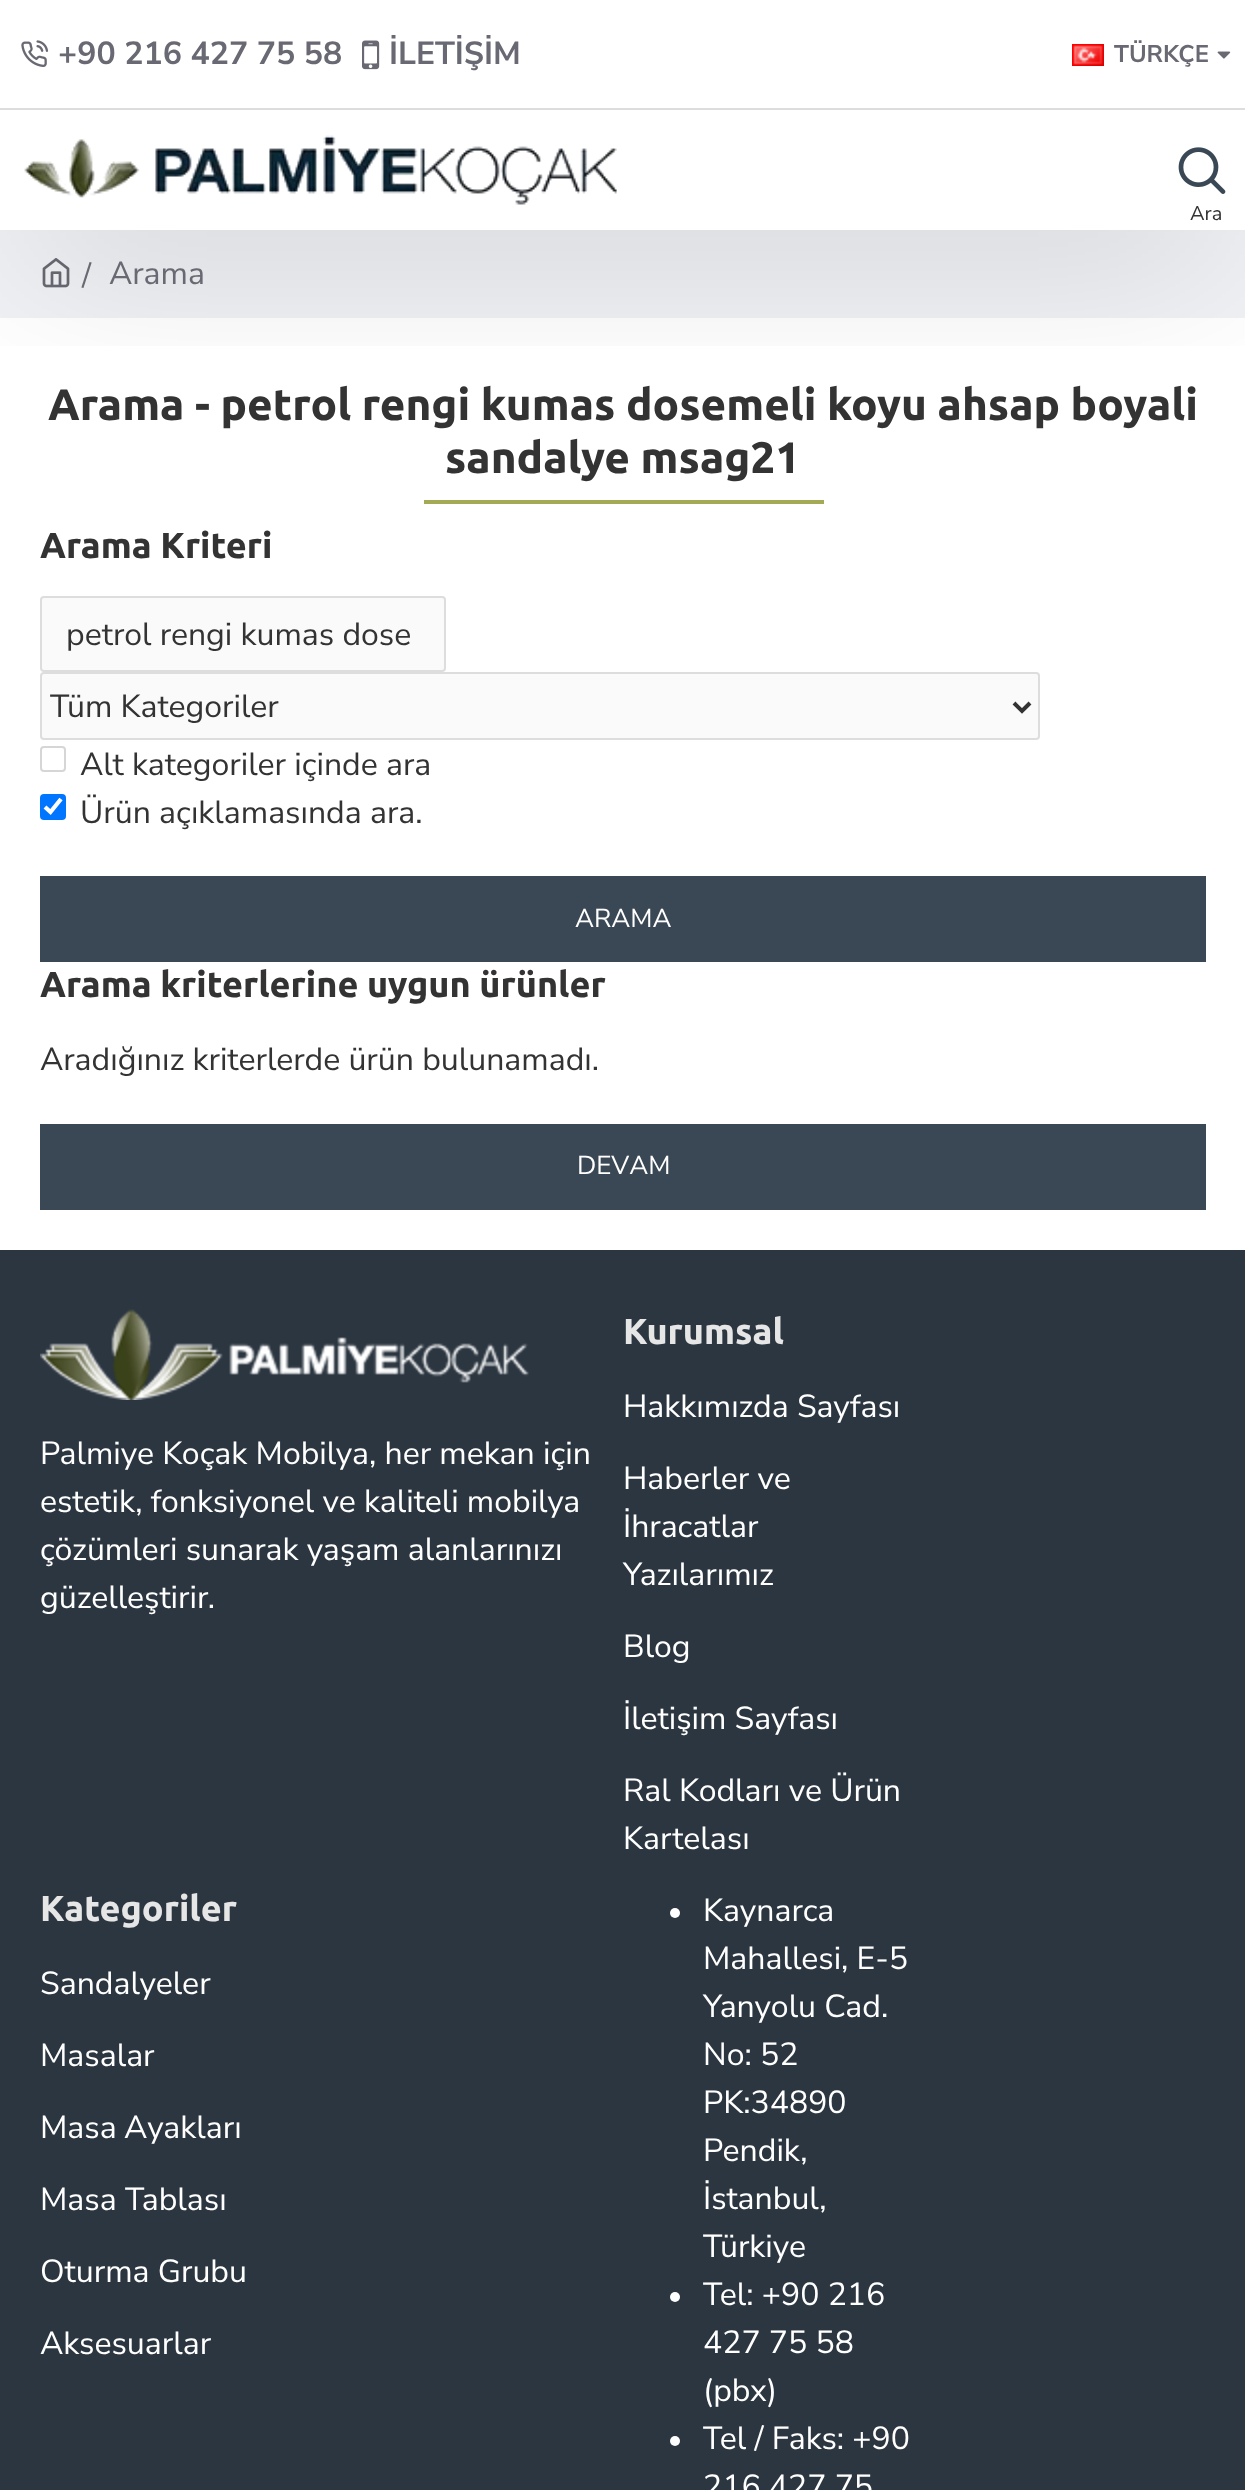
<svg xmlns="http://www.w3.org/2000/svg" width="1245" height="2490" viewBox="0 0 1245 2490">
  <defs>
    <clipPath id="clip1"><rect x="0" y="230" width="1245" height="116"/></clipPath>
  </defs>
  <rect width="100%" height="100%" fill="rgb(255,255,255)"/>
  <rect x="0" y="230" width="1245" height="88" fill="rgb(240,242,245)"/>
  <image x="42" y="258" width="28" height="30" href="pic7.png"/>
  <rect x="424" y="500" width="400" height="4" fill="rgb(163,170,83)"/>
  <g clip-path="url(#clip1)">
    <rect x="20" y="160" width="1206" height="80" fill="rgba(0,0,0,0.2)" filter="blur(90px)"/>
  </g>
  <rect x="0" y="18" width="1245" height="90" fill="rgb(255,255,255)"/>
  <rect x="0" y="108" width="1245" height="2" fill="rgb(221,221,221)"/>
  <image x="21" y="40" width="28" height="27" href="pic1.png"/>
  <text x="58" y="64" font-family="Nunito Sans" font-size="32" font-weight="bold" fill="rgb(105,105,115)">+90 216 427 75 58</text>
  <image x="362" y="40" width="18" height="30" href="pic2.png"/>
  <text x="389" y="64" font-family="Nunito Sans" font-size="32" font-weight="bold" fill="rgb(105,105,115)">İLETİŞİM</text>
  <image x="1072" y="44" width="32" height="22" href="pic3.png"/>
  <text x="1114" y="62" font-family="Nunito Sans" font-size="24" font-weight="bold" fill="rgb(105,105,115)">TÜRKÇE</text>
  <image x="1217" y="51" width="14" height="8" href="pic4.png"/>
  <image x="24" y="135" width="593" height="70" href="pic5.png"/>
  <image x="1178" y="147" width="48" height="47" href="pic6.png"/>
  <text x="1190" y="220" font-family="Nunito Sans" font-size="20" fill="rgb(51,51,51)">Ara</text>
  <g font-family="Nunito Sans" font-size="32" fill="rgb(105,105,115)">
    <text x="82" y="286">/</text>
    <text x="109" y="284">Arama</text>
  </g>
  <g font-family="Ubuntu" font-size="44" font-weight="bold" fill="rgb(51,51,51)">
    <text x="48" y="420">Arama - petrol rengi kumas dosemeli koyu ahsap boyali</text>
    <text x="445" y="473">sandalye msag21</text>
  </g>
  <text x="40" y="558" font-family="Ubuntu" font-size="36" font-weight="bold" fill="rgb(51,51,51)">Arama Kriteri</text>
  <rect x="41" y="597" width="404" height="74" rx="3" fill="rgb(250,250,250)" stroke="rgb(221,221,221)" stroke-width="2"/>
  <text x="66" y="645" font-family="Nunito Sans" font-size="32" fill="rgb(51,51,51)">petrol rengi kumas dose</text>
  <rect x="41" y="673" width="998" height="66" rx="3" fill="rgb(250,250,250)" stroke="rgb(221,221,221)" stroke-width="2"/>
  <path d="M1014 703L1022 711L1030 703" fill="none" stroke="rgb(51,51,51)" stroke-width="4"/>
  <text x="50" y="717" font-family="Nunito Sans" font-size="32" fill="rgb(51,51,51)">Tüm Kategoriler</text>
  <rect x="41" y="747" width="24" height="24" rx="3" fill="none" stroke="rgb(214,214,214)" stroke-width="2"/>
  <text x="80" y="775" font-family="Nunito Sans" font-size="32" fill="rgb(51,51,51)">Alt kategoriler içinde ara</text>
  <rect x="40" y="794" width="26" height="26" rx="4" fill="rgb(0,117,255)"/>
  <path d="M45 807L50.5 812L61 799" fill="none" stroke="rgb(255,255,255)" stroke-width="4.2"/>
  <text x="80" y="823" font-family="Nunito Sans" font-size="32" fill="rgb(51,51,51)">Ürün açıklamasında ara.</text>
  <rect x="40" y="876" width="1166" height="86" fill="rgb(58,71,84)"/>
  <text x="575" y="927" font-family="Nunito Sans" font-size="26" fill="rgb(255,255,255)">ARAMA</text>
  <text x="40" y="997" font-family="Ubuntu" font-size="36" font-weight="bold" fill="rgb(51,51,51)">Arama kriterlerine uygun ürünler</text>
  <text x="40" y="1070" font-family="Nunito Sans" font-size="32" fill="rgb(51,51,51)">Aradığınız kriterlerde ürün bulunamadı.</text>
  <rect x="40" y="1124" width="1166" height="86" fill="rgb(58,71,84)"/>
  <text x="577" y="1174" font-family="Nunito Sans" font-size="26" fill="rgb(255,255,255)">DEVAM</text>
  <rect x="0" y="1250" width="1245" height="1240" fill="rgb(44,54,64)"/>
  <image x="40" y="1309" width="489" height="91" href="pic8.png"/>
  <g font-family="Nunito Sans" font-size="32" fill="rgb(255,255,255)">
    <text>
      <tspan x="40" y="1464">Palmiye Koçak Mobilya, her mekan için</tspan>
      <tspan x="40" y="1512">estetik, fonksiyonel ve kaliteli mobilya</tspan>
      <tspan x="40" y="1560">çözümleri sunarak yaşam alanlarınızı</tspan>
      <tspan x="40" y="1608">güzelleştirir.</tspan>
    </text>
  </g>
  <text x="623" y="1344" font-family="Ubuntu" font-size="36" font-weight="bold" fill="rgb(230,230,230)">Kurumsal</text>
  <g font-family="Nunito Sans" font-size="32" fill="rgb(255,255,255)">
    <text x="623" y="1417">Hakkımızda Sayfası</text>
    <text>
      <tspan x="623" y="1489">Haberler ve</tspan>
      <tspan x="623" y="1537">İhracatlar</tspan>
      <tspan x="623" y="1585">Yazılarımız</tspan>
    </text>
    <text x="623" y="1657">Blog</text>
    <text x="623" y="1729">İletişim Sayfası</text>
    <text>
      <tspan x="623" y="1801">Ral Kodları ve Ürün</tspan>
      <tspan x="623" y="1849">Kartelası</tspan>
    </text>
  </g>
  <text x="40" y="1921" font-family="Ubuntu" font-size="36" font-weight="bold" fill="rgb(230,230,230)">Kategoriler</text>
  <g font-family="Nunito Sans" font-size="32" fill="rgb(255,255,255)">
    <text x="40" y="1994">Sandalyeler</text>
    <text x="40" y="2066">Masalar</text>
    <text x="40" y="2138" word-spacing="-1">Masa Ayakları</text>
    <text x="40" y="2210">Masa Tablası</text>
    <text x="40" y="2282">Oturma Grubu</text>
    <text x="40" y="2354">Aksesuarlar</text>
  </g>
  <circle cx="675" cy="1913" r="5" fill="rgb(255,255,255)"/>
  <g font-family="Nunito Sans" font-size="32" fill="rgb(255,255,255)">
    <text>
      <tspan x="703" y="1921">Kaynarca</tspan>
      <tspan x="703" y="1969">Mahallesi, E-5</tspan>
      <tspan x="703" y="2017">Yanyolu Cad.</tspan>
      <tspan x="703" y="2065">No: 52</tspan>
      <tspan x="703" y="2113">PK:34890</tspan>
      <tspan x="703" y="2161">Pendik,</tspan>
      <tspan x="703" y="2209">İstanbul,</tspan>
      <tspan x="703" y="2257">Türkiye</tspan>
    </text>
  </g>
  <circle cx="675" cy="2297" r="5" fill="rgb(255,255,255)"/>
  <g font-family="Nunito Sans" font-size="32" fill="rgb(255,255,255)">
    <text>
      <tspan x="703" y="2305">Tel: +90 216</tspan>
      <tspan x="703" y="2353">427 75 58</tspan>
      <tspan x="703" y="2401">(pbx)</tspan>
    </text>
  </g>
  <circle cx="675" cy="2441" r="5" fill="rgb(255,255,255)"/>
  <g font-family="Nunito Sans" font-size="32" fill="rgb(255,255,255)">
    <text>
      <tspan x="703" y="2449">Tel / Faks: +90</tspan>
      <tspan x="703" y="2497">216 427 75</tspan>
    </text>
  </g>
</svg>
